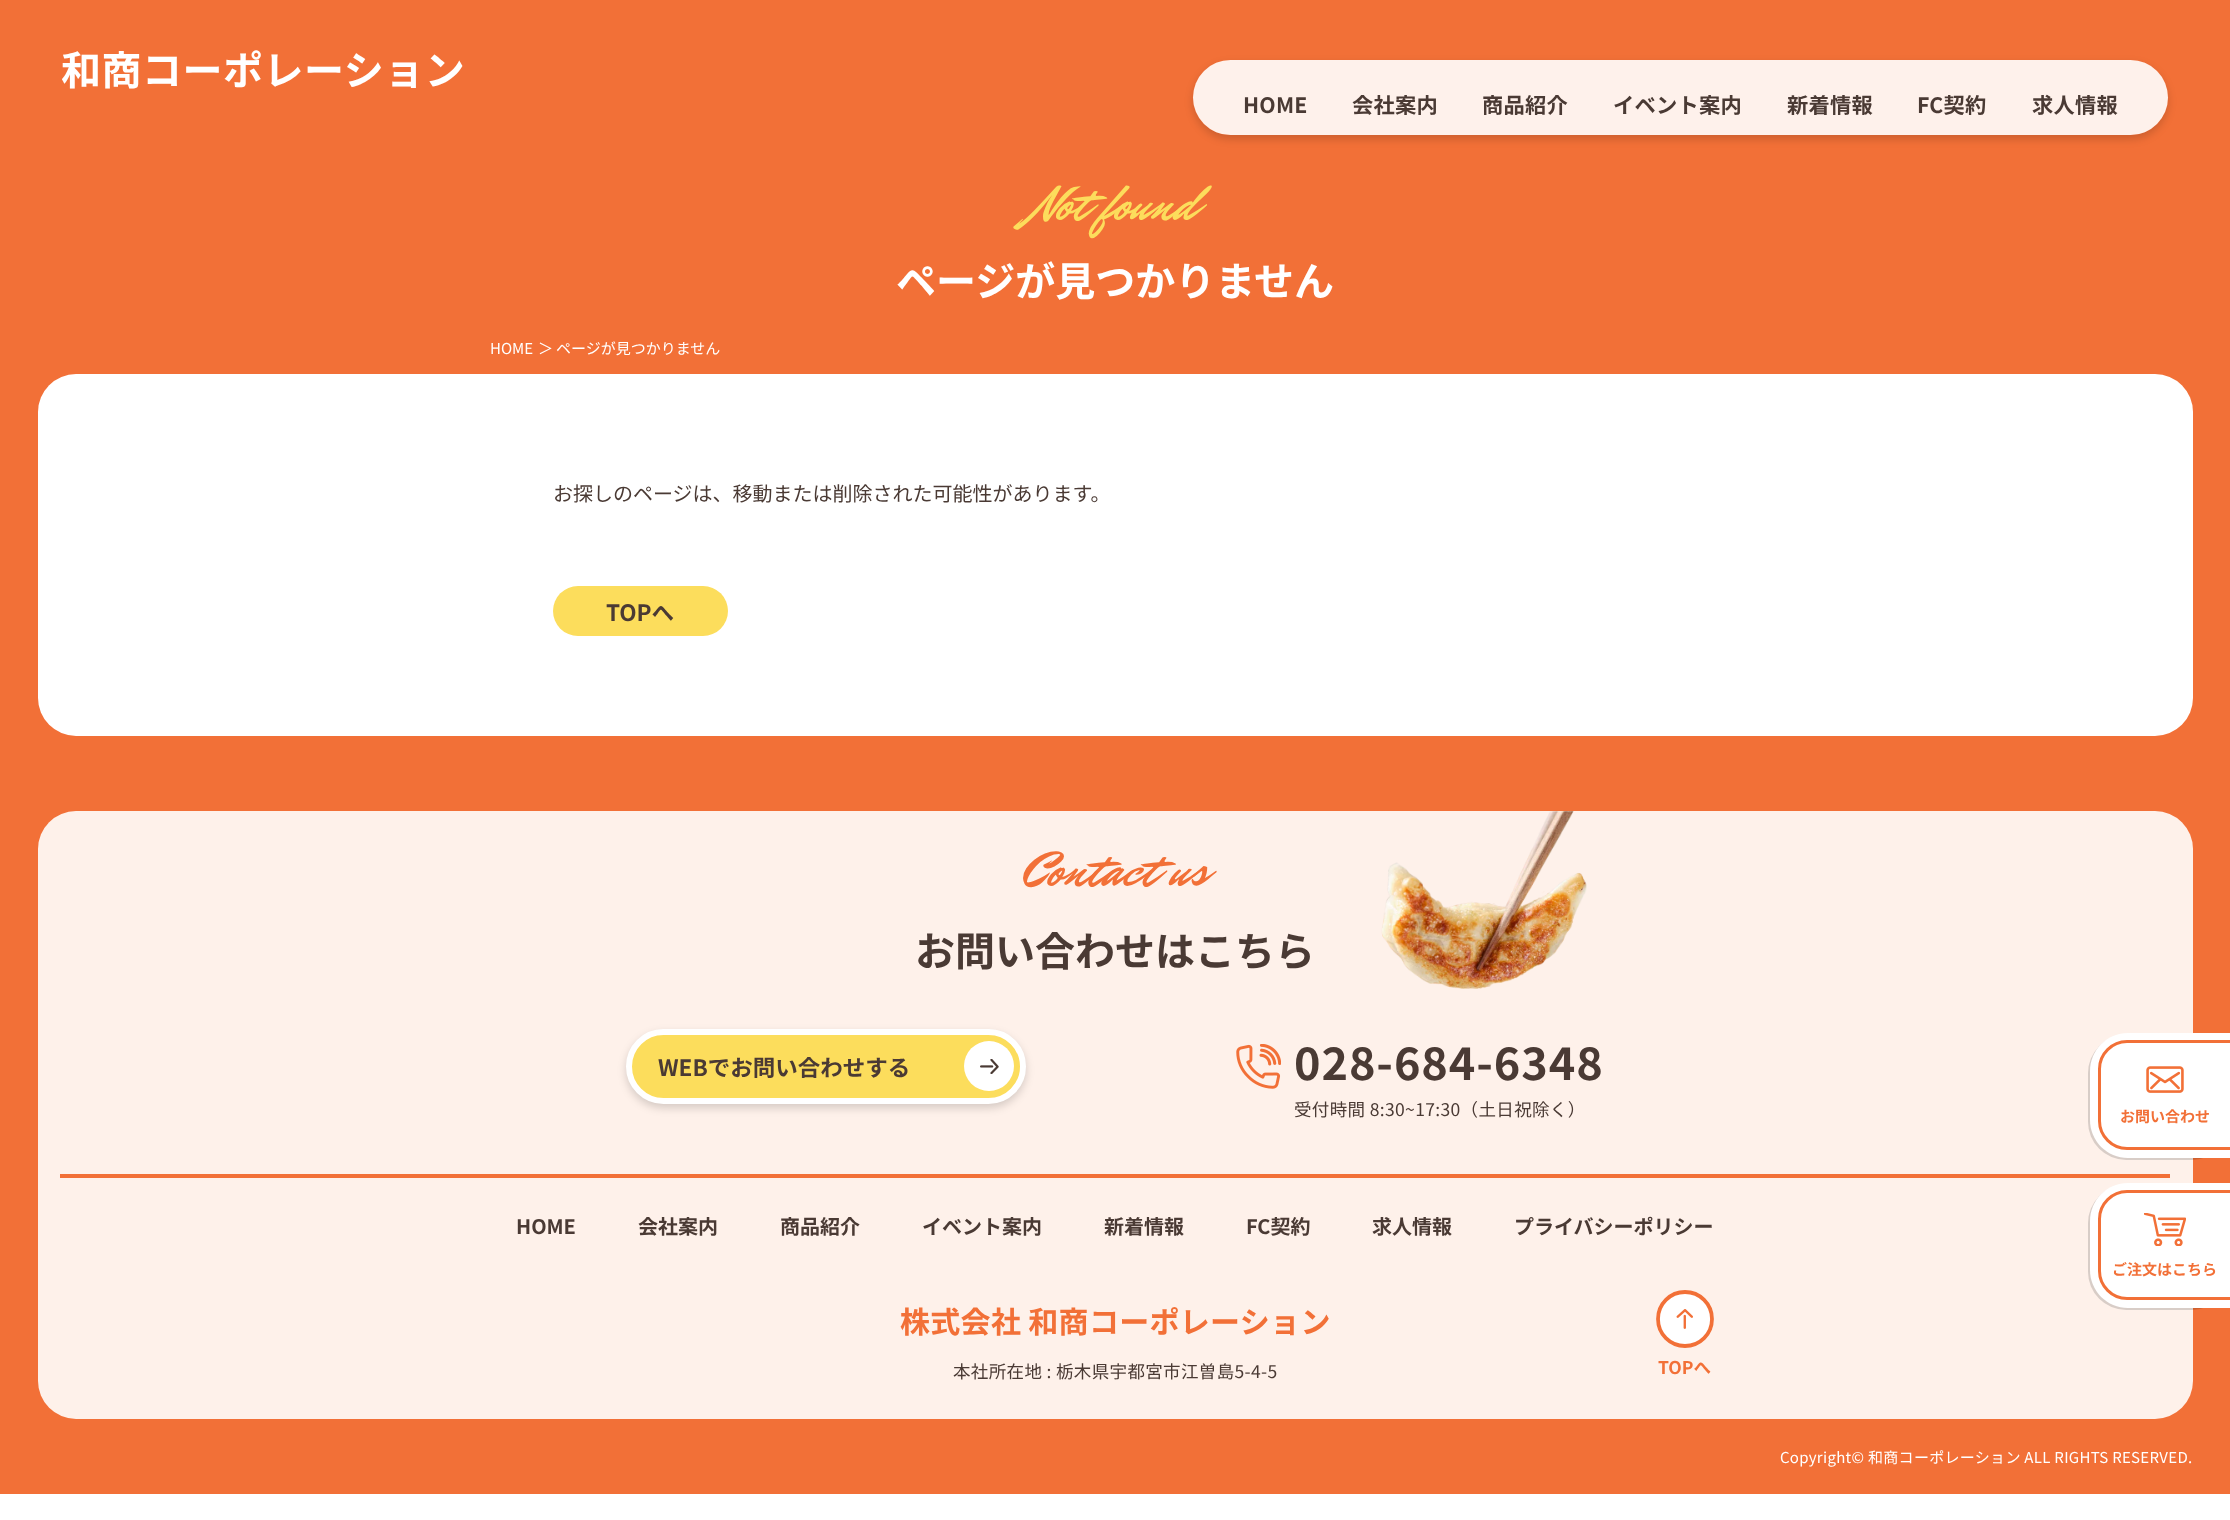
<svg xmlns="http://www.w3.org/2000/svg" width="2230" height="1520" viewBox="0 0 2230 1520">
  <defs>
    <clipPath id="clip1"><path d="M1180 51H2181V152H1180ZM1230.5 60H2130.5C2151 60 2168 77 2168 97.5C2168 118 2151 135 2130.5 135H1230.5C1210 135 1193 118 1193 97.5C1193 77 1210 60 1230.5 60Z" clip-rule="evenodd"/></clipPath>
  </defs>
  <rect width="100%" height="100%" fill="rgb(255,255,255)"/>
  <rect x="0" y="0" width="2230" height="1494" fill="rgb(242,112,55)"/>
  <text x="61" y="85" font-family="Noto Sans JP" font-size="40" font-weight="bold" letter-spacing="0.5" fill="rgb(255,255,255)">和商コーポレーション</text>
  <g clip-path="url(#clip1)">
    <rect x="1193" y="64" width="975" height="75" rx="37.5" fill="rgba(0,0,0,0.16)" filter="blur(4px)"/>
  </g>
  <rect x="1193" y="60" width="975" height="75" rx="37.5" fill="rgba(255,255,255,0.9)"/>
  <g font-family="Noto Sans JP" font-size="21.25" font-weight="bold" letter-spacing="0.25" fill="rgb(74,58,52)">
    <text x="1243" y="113">HOME</text>
    <text x="1352" y="113">会社案内</text>
    <text x="1482" y="113">商品紹介</text>
    <text x="1613" y="113">イベント案内</text>
    <text x="1787" y="113">新着情報</text>
    <text x="1917" y="113">FC契約</text>
    <text x="2032" y="113">求人情報</text>
  </g>
  <text x="1032" y="219" font-family="Mr Dafoe" font-size="50" fill="rgb(252,221,92)">Not found</text>
  <text x="896" y="296" font-family="Noto Sans JP" font-size="40" font-weight="bold" fill="rgb(255,255,255)">ページが見つかりません</text>
  <g font-family="Noto Sans JP" font-size="15" fill="rgb(255,255,255)">
    <text x="490" y="354">HOME</text>
    <text x="538" y="354">＞</text>
    <text x="556" y="354">ページが見つかりません</text>
  </g>
  <rect x="38" y="374" width="2155" height="362" rx="38" fill="rgb(255,255,255)"/>
  <text x="553" y="501" font-family="Noto Sans JP" font-size="20" fill="rgb(74,58,52)">お探しのページは、移動または削除された可能性があります。</text>
  <rect x="553" y="586" width="175" height="50" rx="25" fill="rgb(252,221,92)"/>
  <text x="606" y="621" font-family="Noto Sans JP" font-size="22.5" font-weight="bold" fill="rgb(74,58,52)">TOPへ</text>
  <rect x="38" y="811" width="2155" height="608" rx="38" fill="rgb(254,241,234)"/>
  <text x="1023" y="885" font-family="Mr Dafoe" font-size="50" fill="rgb(242,112,55)">Contact us</text>
  <text x="915" y="966" font-family="Noto Sans JP" font-size="40" font-weight="bold" fill="rgb(74,58,52)">お問い合わせはこちら</text>
  <rect x="626" y="1033" width="400" height="75" rx="37.5" fill="rgba(0,0,0,0.16)" filter="blur(4px)"/>
  <rect x="629" y="1032" width="394" height="69" rx="34.5" fill="rgb(252,221,92)" stroke="rgb(255,255,255)" stroke-width="6"/>
  <text x="658" y="1076" font-family="Noto Sans JP" font-size="22.5" font-weight="bold" fill="rgb(74,58,52)">WEBでお問い合わせする</text>
  <circle cx="989" cy="1066" r="25" fill="rgb(255,255,255)"/>
  <image x="980" y="1059" width="19" height="15" href="pic1.png"/>
  <image x="1236" y="1044" width="45" height="45" href="pic2.png"/>
  <text x="1294" y="1080" font-family="Noto Sans JP" font-size="45" font-weight="bold" letter-spacing="0.9" fill="rgb(74,58,52)">028-684-6348</text>
  <text x="1294" y="1116" font-family="Noto Sans JP" font-size="17.5" letter-spacing="0.35" fill="rgb(74,58,52)">受付時間 8:30~17:30（土日祝除く）</text>
  <rect x="60" y="1174" width="2110" height="4" fill="rgb(242,112,55)"/>
  <image x="1381" y="811" width="206" height="178" href="pic3.png"/>
  <g font-family="Noto Sans JP" font-size="20" font-weight="bold" fill="rgb(74,58,52)">
    <text x="516" y="1234">HOME</text>
    <text x="638" y="1234">会社案内</text>
    <text x="780" y="1234">商品紹介</text>
    <text x="922" y="1234">イベント案内</text>
    <text x="1104" y="1234">新着情報</text>
    <text x="1246" y="1234">FC契約</text>
    <text x="1372" y="1234">求人情報</text>
    <text x="1514" y="1234">プライバシーポリシー</text>
  </g>
  <path d="M1656 1319C1656 1303 1669 1290 1685 1290C1701 1290 1714 1303 1714 1319C1714 1335 1701 1348 1685 1348C1669 1348 1656 1335 1656 1319Z" fill="rgb(255,255,255)"/>
  <path d="M1658 1319C1658 1304 1670 1292 1685 1292C1700 1292 1712 1304 1712 1319C1712 1334 1700 1346 1685 1346C1670 1346 1658 1334 1658 1319Z" fill="none" stroke="rgb(242,112,55)" stroke-width="3.8"/>
  <image x="1676" y="1309" width="17" height="20" href="pic4.png"/>
  <text x="1658" y="1374" font-family="Noto Sans JP" font-size="17.5" font-weight="bold" fill="rgb(242,112,55)">TOPへ</text>
  <text x="900" y="1333" font-family="Noto Sans JP" font-size="30" font-weight="bold" letter-spacing="0.3" fill="rgb(242,112,55)">株式会社 和商コーポレーション</text>
  <text x="953" y="1378" font-family="Noto Sans JP" font-size="17.5" letter-spacing="0.35" fill="rgb(74,58,52)">本社所在地 : 栃木県宇都宮市江曽島5-4-5</text>
  <text x="1780" y="1463" font-family="Noto Sans JP" font-size="15" letter-spacing="0.3" fill="rgb(255,255,255)">Copyright© 和商コーポレーション ALL RIGHTS RESERVED.</text>
  <rect x="2088" y="1035" width="142" height="125" rx="38" fill="rgba(0,0,0,0.15)" filter="blur(0.5px)"/>
  <path d="M2128 1033H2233V1158H2128C2107 1158 2090 1141 2090 1120V1071C2090 1050 2107 1033 2128 1033Z" fill="rgb(255,255,255)"/>
  <path d="M2127 1041.5H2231.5V1148.5H2127C2112 1148.5 2099.5 1136 2099.5 1121V1069C2099.5 1054 2112 1041.5 2127 1041.5Z" fill="none" stroke="rgb(242,112,55)" stroke-width="3"/>
  <image x="2146" y="1066" width="38" height="27" href="pic5.png"/>
  <text x="2120" y="1122" font-family="Noto Sans JP" font-size="15" font-weight="bold" fill="rgb(242,112,55)">お問い合わせ</text>
  <rect x="2088" y="1185" width="142" height="125" rx="38" fill="rgba(0,0,0,0.15)" filter="blur(0.5px)"/>
  <path d="M2128 1183H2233V1308H2128C2107 1308 2090 1291 2090 1270V1221C2090 1200 2107 1183 2128 1183Z" fill="rgb(255,255,255)"/>
  <path d="M2127 1191.5H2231.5V1298.5H2127C2112 1298.5 2099.5 1286 2099.5 1271V1219C2099.5 1204 2112 1191.5 2127 1191.5Z" fill="none" stroke="rgb(242,112,55)" stroke-width="3"/>
  <image x="2144" y="1213" width="42" height="33" href="pic6.png"/>
  <text x="2112" y="1275" font-family="Noto Sans JP" font-size="15" font-weight="bold" fill="rgb(242,112,55)">ご注文はこちら</text>
</svg>
